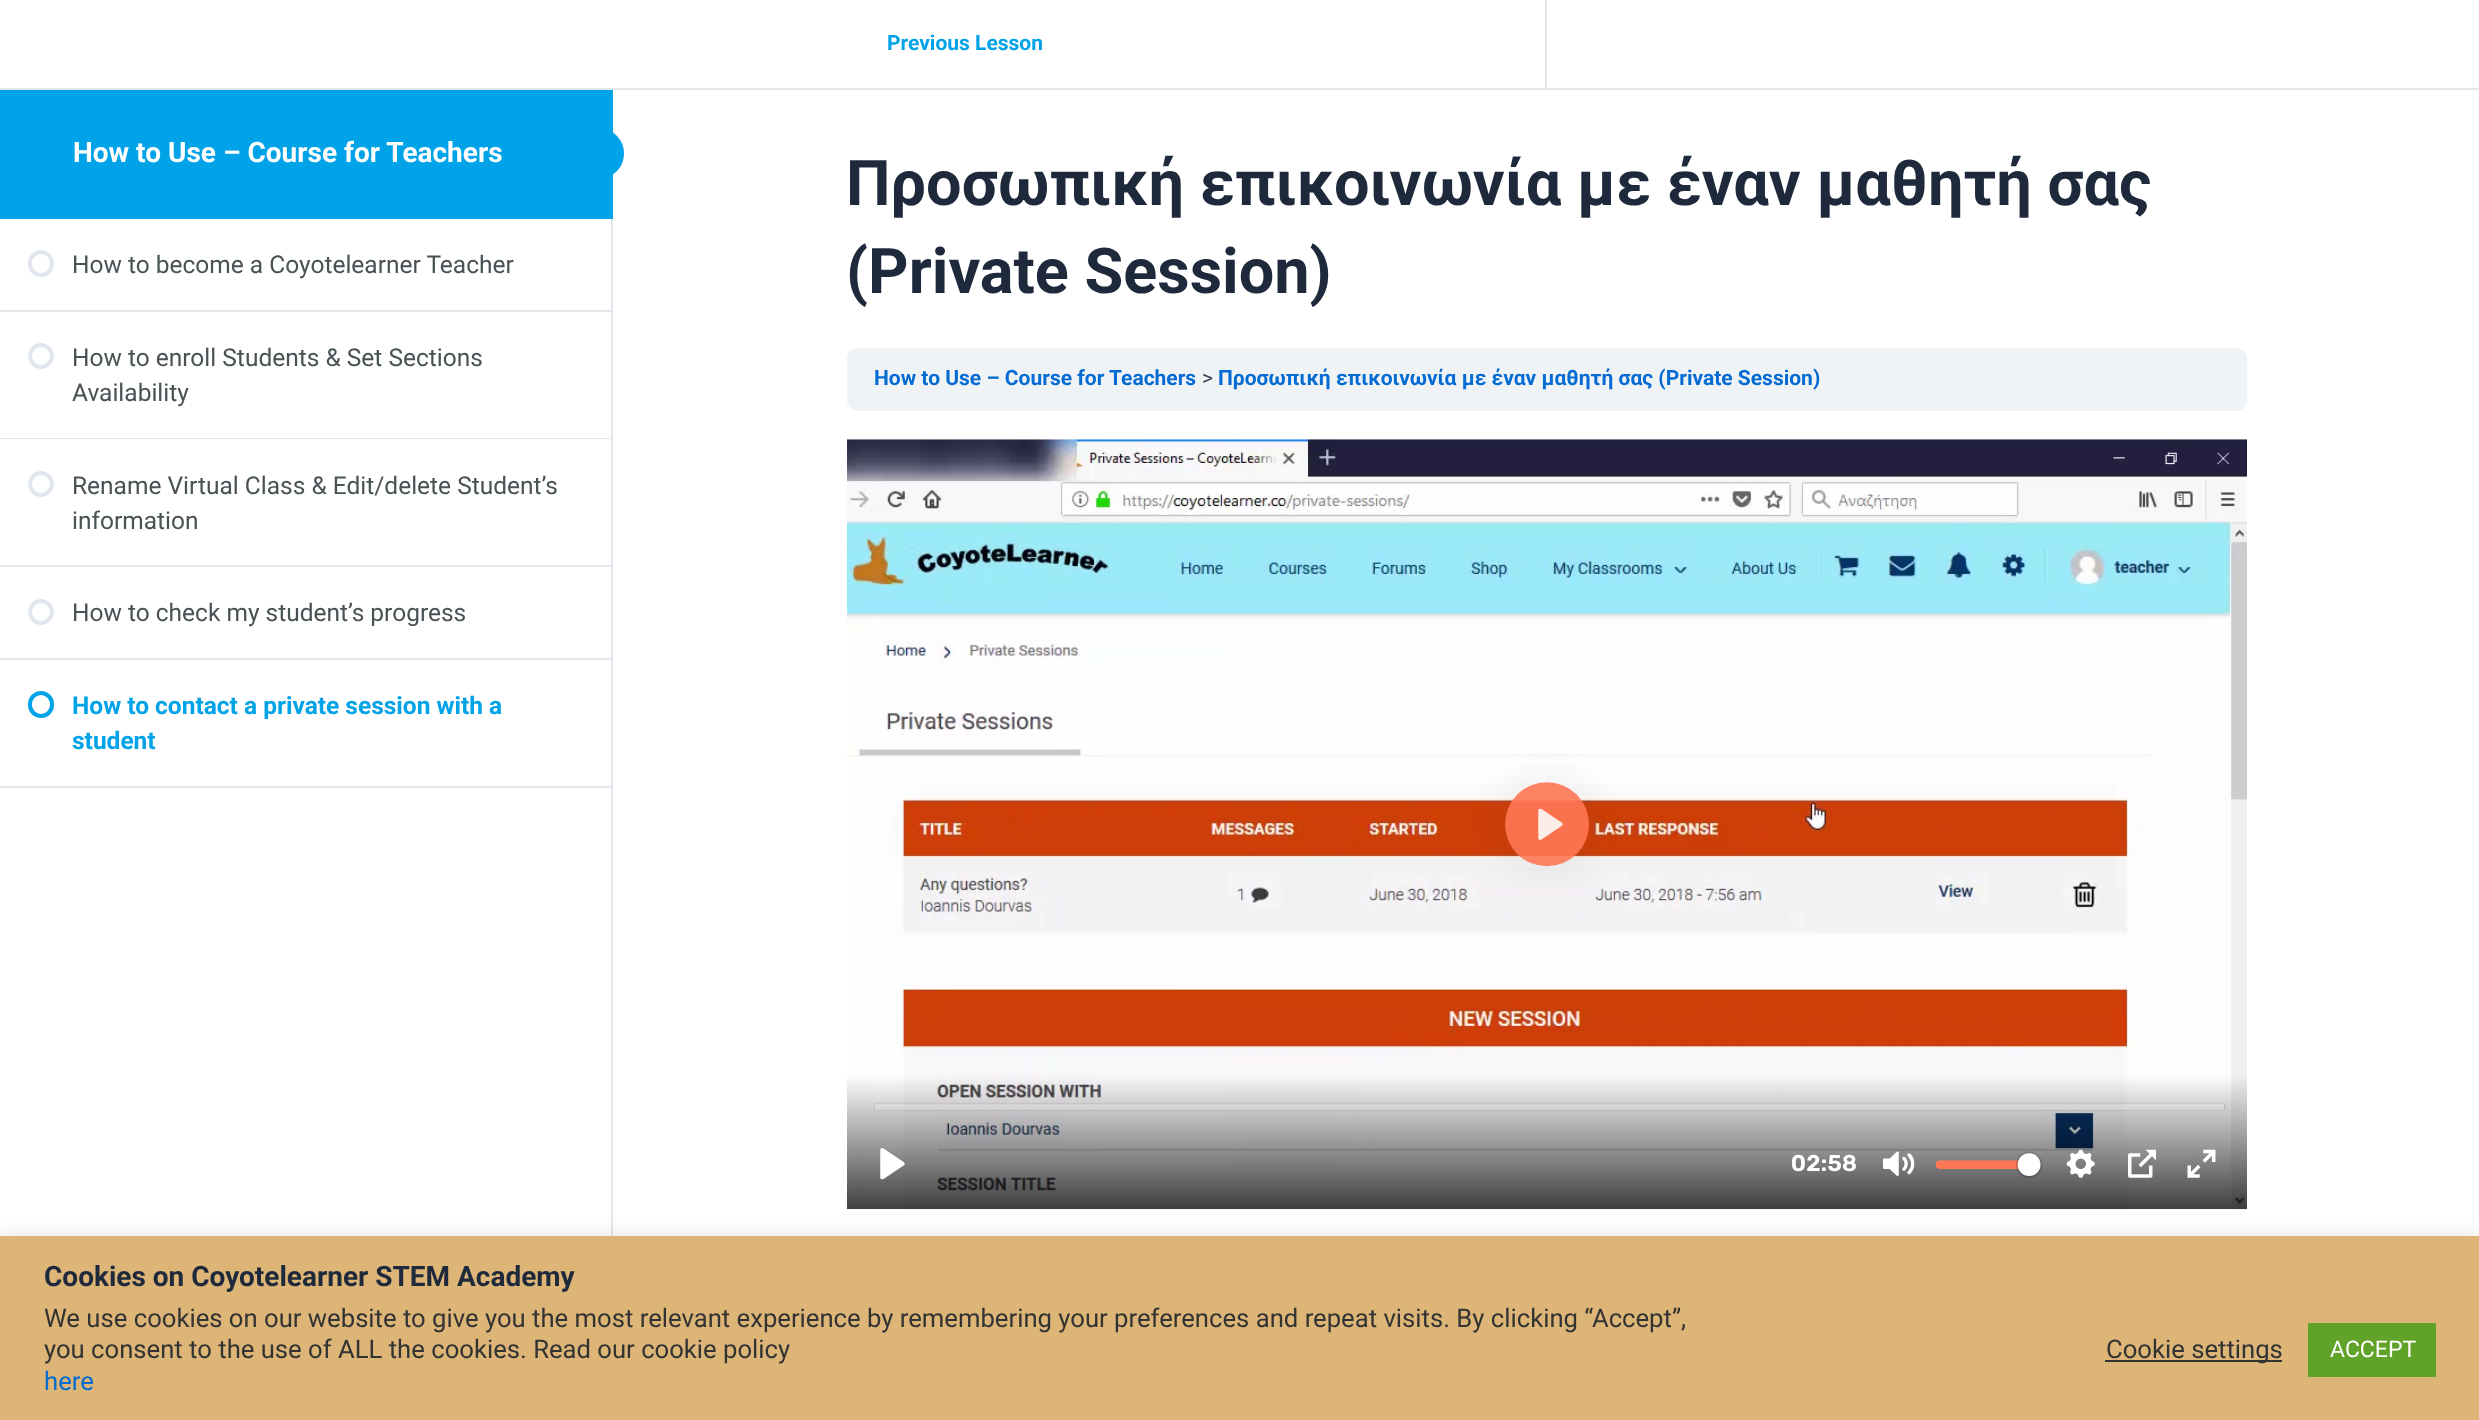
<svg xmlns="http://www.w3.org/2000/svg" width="2479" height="1420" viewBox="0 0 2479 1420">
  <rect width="100%" height="100%" fill="rgb(255,255,255)"/>
  <rect x="0" y="88" width="2479" height="2" fill="rgb(226,231,237)"/>
  <rect x="1545" y="0" width="2" height="88" fill="rgb(226,231,237)"/>
  <text x="887" y="50" font-family="Roboto" font-size="21" font-weight="bold" fill="rgb(0,162,232)">Previous Lesson</text>
  <rect x="611" y="219" width="2" height="1017" fill="rgb(226,231,237)"/>
  <rect x="0" y="90" width="613" height="129" fill="rgb(0,162,232)"/>
  <text x="73" y="162" font-family="Roboto" font-size="28" font-weight="bold" fill="rgb(255,255,255)">How to Use – Course for Teachers</text>
  <ellipse cx="601" cy="153.5" rx="23" ry="24.5" fill="rgb(0,162,232)"/>
  <rect x="0" y="310" width="611" height="2" fill="rgb(226,231,237)"/>
  <rect x="30" y="252" width="22" height="23" rx="11" fill="none" stroke="rgb(226,231,237)" stroke-width="4"/>
  <text x="72" y="273" font-family="Roboto" font-size="24.5" fill="rgb(73,82,85)">How to become a Coyotelearner Teacher</text>
  <rect x="0" y="438" width="611" height="1" fill="rgb(226,231,237)"/>
  <circle cx="41" cy="356" r="11" fill="none" stroke="rgb(226,231,237)" stroke-width="4"/>
  <g font-family="Roboto" font-size="24.5" fill="rgb(73,82,85)">
    <text>
      <tspan x="72" y="366">How to enroll Students &amp; Set Sections</tspan>
      <tspan x="72" y="401">Availability</tspan>
    </text>
  </g>
  <rect x="0" y="565" width="611" height="2" fill="rgb(226,231,237)"/>
  <circle cx="41" cy="484" r="11" fill="none" stroke="rgb(226,231,237)" stroke-width="4"/>
  <g font-family="Roboto" font-size="24.5" fill="rgb(73,82,85)">
    <text>
      <tspan x="72" y="494">Rename Virtual Class &amp; Edit/delete Student’s</tspan>
      <tspan x="72" y="529">information</tspan>
    </text>
  </g>
  <rect x="0" y="658" width="611" height="2" fill="rgb(226,231,237)"/>
  <circle cx="41" cy="612" r="11" fill="none" stroke="rgb(226,231,237)" stroke-width="4"/>
  <text x="72" y="621" font-family="Roboto" font-size="24.5" fill="rgb(73,82,85)">How to check my student’s progress</text>
  <rect x="0" y="786" width="611" height="2" fill="rgb(226,231,237)"/>
  <rect x="30" y="693" width="22" height="23" rx="11" fill="none" stroke="rgb(0,162,232)" stroke-width="4"/>
  <g font-family="Roboto" font-size="24.5" font-weight="bold" fill="rgb(0,162,232)">
    <text>
      <tspan x="72" y="714">How to contact a private session with a</tspan>
      <tspan x="72" y="749">student</tspan>
    </text>
  </g>
  <g font-family="Roboto" font-size="63" font-weight="bold" fill="rgb(30,41,59)">
    <text>
      <tspan x="846" y="205">Προσωπική επικοινωνία με έναν μαθητή σας</tspan>
      <tspan x="846" y="293">(Private Session)</tspan>
    </text>
  </g>
  <rect x="847" y="348" width="1400" height="63" rx="11" fill="rgb(240,243,246)"/>
  <text x="874" y="385" font-family="Roboto" font-size="21" font-weight="bold" fill="rgb(4,107,210)">How to Use – Course for Teachers</text>
  <text x="1202" y="385" font-family="Roboto" font-size="21" fill="rgb(51,65,85)">&gt;</text>
  <text x="1218" y="385" font-family="Roboto" font-size="21" font-weight="bold" fill="rgb(4,107,210)">Προσωπική επικοινωνία με έναν μαθητή σας (Private Session)</text>
  <image x="847" y="439" width="1400" height="771" href="pic1.png"/>
  <rect x="0" y="1234" width="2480" height="185" fill="rgba(172,171,171,0.3)" filter="blur(9px)"/>
  <rect x="0" y="1236" width="2479" height="184" fill="rgb(221,181,119)"/>
  <text x="44" y="1286" font-family="Roboto" font-size="28" font-weight="bold" fill="rgb(30,41,59)">Cookies on Coyotelearner STEM Academy</text>
  <g font-family="Roboto" font-size="25.67" fill="rgb(51,51,51)">
    <text>
      <tspan x="44" y="1327">We use cookies on our website to give you the most relevant experience by remembering your preferences and repeat visits. By clicking “Accept”,</tspan>
      <tspan x="44" y="1358">you consent to the use of ALL the cookies. Read our cookie policy</tspan>
    </text>
  </g>
  <text x="44" y="1390" font-family="Roboto" font-size="25.67" fill="rgb(4,107,210)">here</text>
  <rect x="2105" y="1360" width="177" height="2" fill="rgb(51,51,51)"/>
  <text x="2106" y="1358" font-family="Roboto" font-size="25.67" fill="rgb(51,51,51)">Cookie settings</text>
  <rect x="2308" y="1323" width="128" height="54" fill="rgb(97,162,41)"/>
  <text x="2330" y="1357" font-family="Roboto" font-size="23" fill="rgb(255,255,255)">ACCEPT</text>
</svg>
